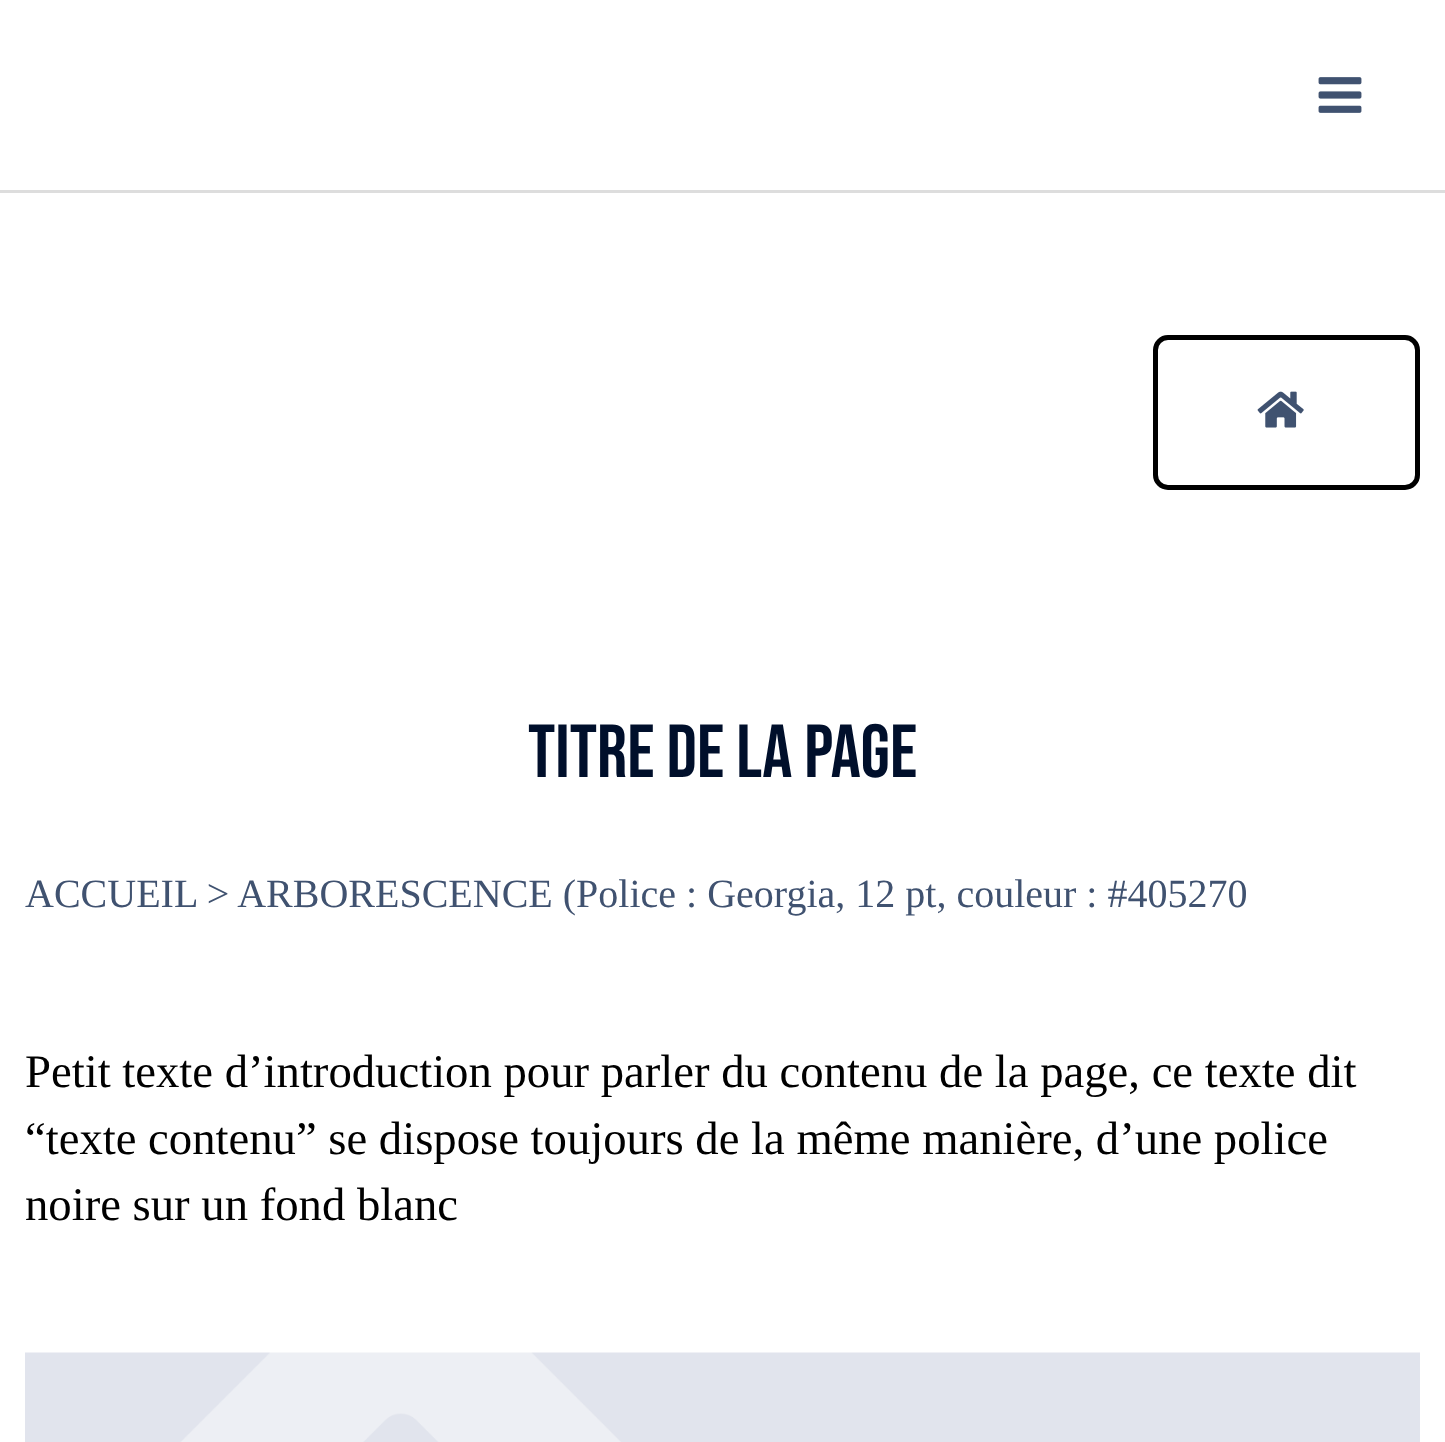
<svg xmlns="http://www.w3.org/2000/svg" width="1445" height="1442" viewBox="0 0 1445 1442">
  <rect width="100%" height="100%" fill="rgb(255,255,255)"/>
  <rect x="0" y="190" width="1445" height="3" fill="rgb(221,221,221)"/>
  <image x="1318" y="77" width="44" height="36" href="pic1.png"/>
  <rect x="1155.5" y="337.5" width="262" height="150" rx="12.5" fill="none" stroke="rgb(0,0,0)" stroke-width="5"/>
  <image x="1257" y="391" width="47" height="37" href="pic2.png"/>
  <text x="528" y="777" font-family="Bebas Neue" font-size="75" fill="rgb(0,15,43)">Titre De La Page</text>
  <text x="25" y="907" font-family="Liberation Serif" font-size="40" fill="rgb(64,82,112)">ACCUEIL &gt; ARBORESCENCE (Police : Georgia, 12 pt, couleur : #405270</text>
  <g font-family="Liberation Serif" font-size="46.7" fill="rgb(0,0,0)">
    <text>
      <tspan x="25" y="1087">Petit texte d’introduction pour parler du contenu de la page, ce texte dit</tspan>
      <tspan x="25" y="1154">“texte contenu” se dispose toujours de la même manière, d’une police</tspan>
      <tspan x="25" y="1220">noire sur un fond blanc</tspan>
    </text>
  </g>
  <image x="25" y="1352" width="1395" height="90" href="pic3.png"/>
</svg>
